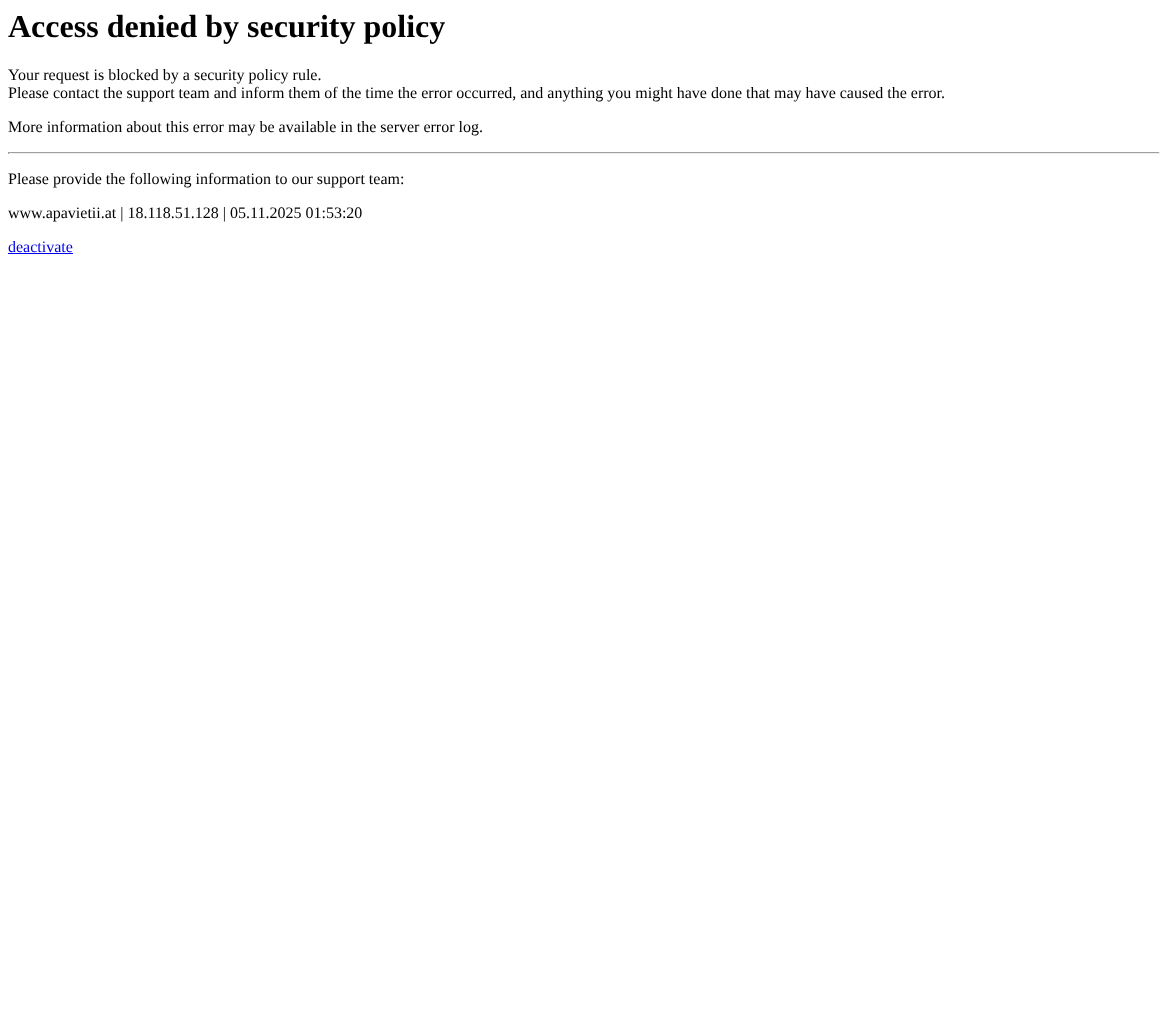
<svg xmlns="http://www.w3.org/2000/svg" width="1168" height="1017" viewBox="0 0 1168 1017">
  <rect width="100%" height="100%" fill="rgb(255,255,255)"/>
  <text x="8" y="37" font-family="Liberation Serif" font-size="32" font-weight="bold" fill="rgb(0,0,0)">Access denied by security policy</text>
  <g font-family="Liberation Serif" font-size="16" fill="rgb(0,0,0)">
    <text>
      <tspan x="8" y="80">Your request is blocked by a security policy rule.</tspan>
      <tspan x="8" y="98">Please contact the support team and inform them of the time the error occurred, and anything you might have done that may have caused the error.</tspan>
    </text>
    <text x="8" y="132">More information about this error may be available in the server error log.</text>
  </g>
  <rect x="8" y="152" width="1152" height="1" fill="rgb(159,159,159)"/>
  <rect x="1159" y="152" width="1" height="2" fill="rgb(238,238,238)"/>
  <rect x="8" y="153" width="1152" height="1" fill="rgb(238,238,238)"/>
  <rect x="8" y="152" width="1" height="2" fill="rgb(159,159,159)"/>
  <g font-family="Liberation Serif" font-size="16" fill="rgb(0,0,0)">
    <text x="8" y="184">Please provide the following information to our support team:</text>
    <text x="8" y="218">www.apavietii.at | 18.118.51.128 | 05.11.2025 01:53:20</text>
  </g>
  <text x="8" y="252" font-family="Liberation Serif" font-size="16" fill="rgb(0,0,238)">deactivate</text>
  <rect x="8" y="253" width="65" height="1" fill="rgb(0,0,238)"/>
</svg>
